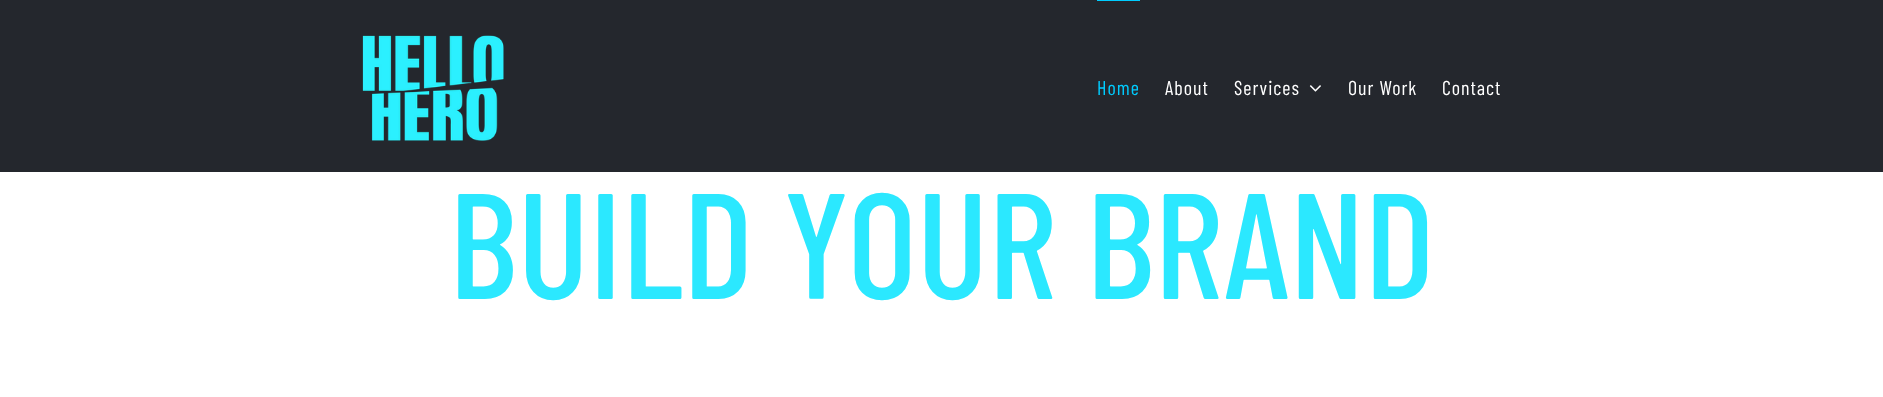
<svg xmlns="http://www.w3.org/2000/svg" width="1883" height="397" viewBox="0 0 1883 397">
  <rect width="100%" height="100%" fill="rgb(255,255,255)"/>
  <rect x="0" y="0" width="1883" height="172" fill="rgb(36,39,45)"/>
  <image x="362" y="35" width="142" height="106" href="pic1.png"/>
  <rect x="1097" y="0" width="43" height="1" fill="rgb(0,204,255)"/>
  <text x="1097" y="95" font-family="Barlow Condensed" font-size="20" letter-spacing="1" fill="rgb(0,204,255)">Home</text>
  <g font-family="Barlow Condensed" font-size="20" letter-spacing="1" fill="rgb(255,255,255)">
    <text x="1165" y="95">About</text>
    <text x="1234" y="95">Services</text>
  </g>
  <image x="1309" y="85" width="12" height="7" href="pic2.png"/>
  <g font-family="Barlow Condensed" font-size="20" letter-spacing="1" fill="rgb(255,255,255)">
    <text x="1348" y="95">Our Work</text>
    <text x="1442" y="95">Contact</text>
  </g>
  <text x="449" y="299" font-family="Barlow Condensed" font-size="150" font-weight="500" fill="rgb(43,232,255)">BUILD YOUR BRAND</text>
</svg>
